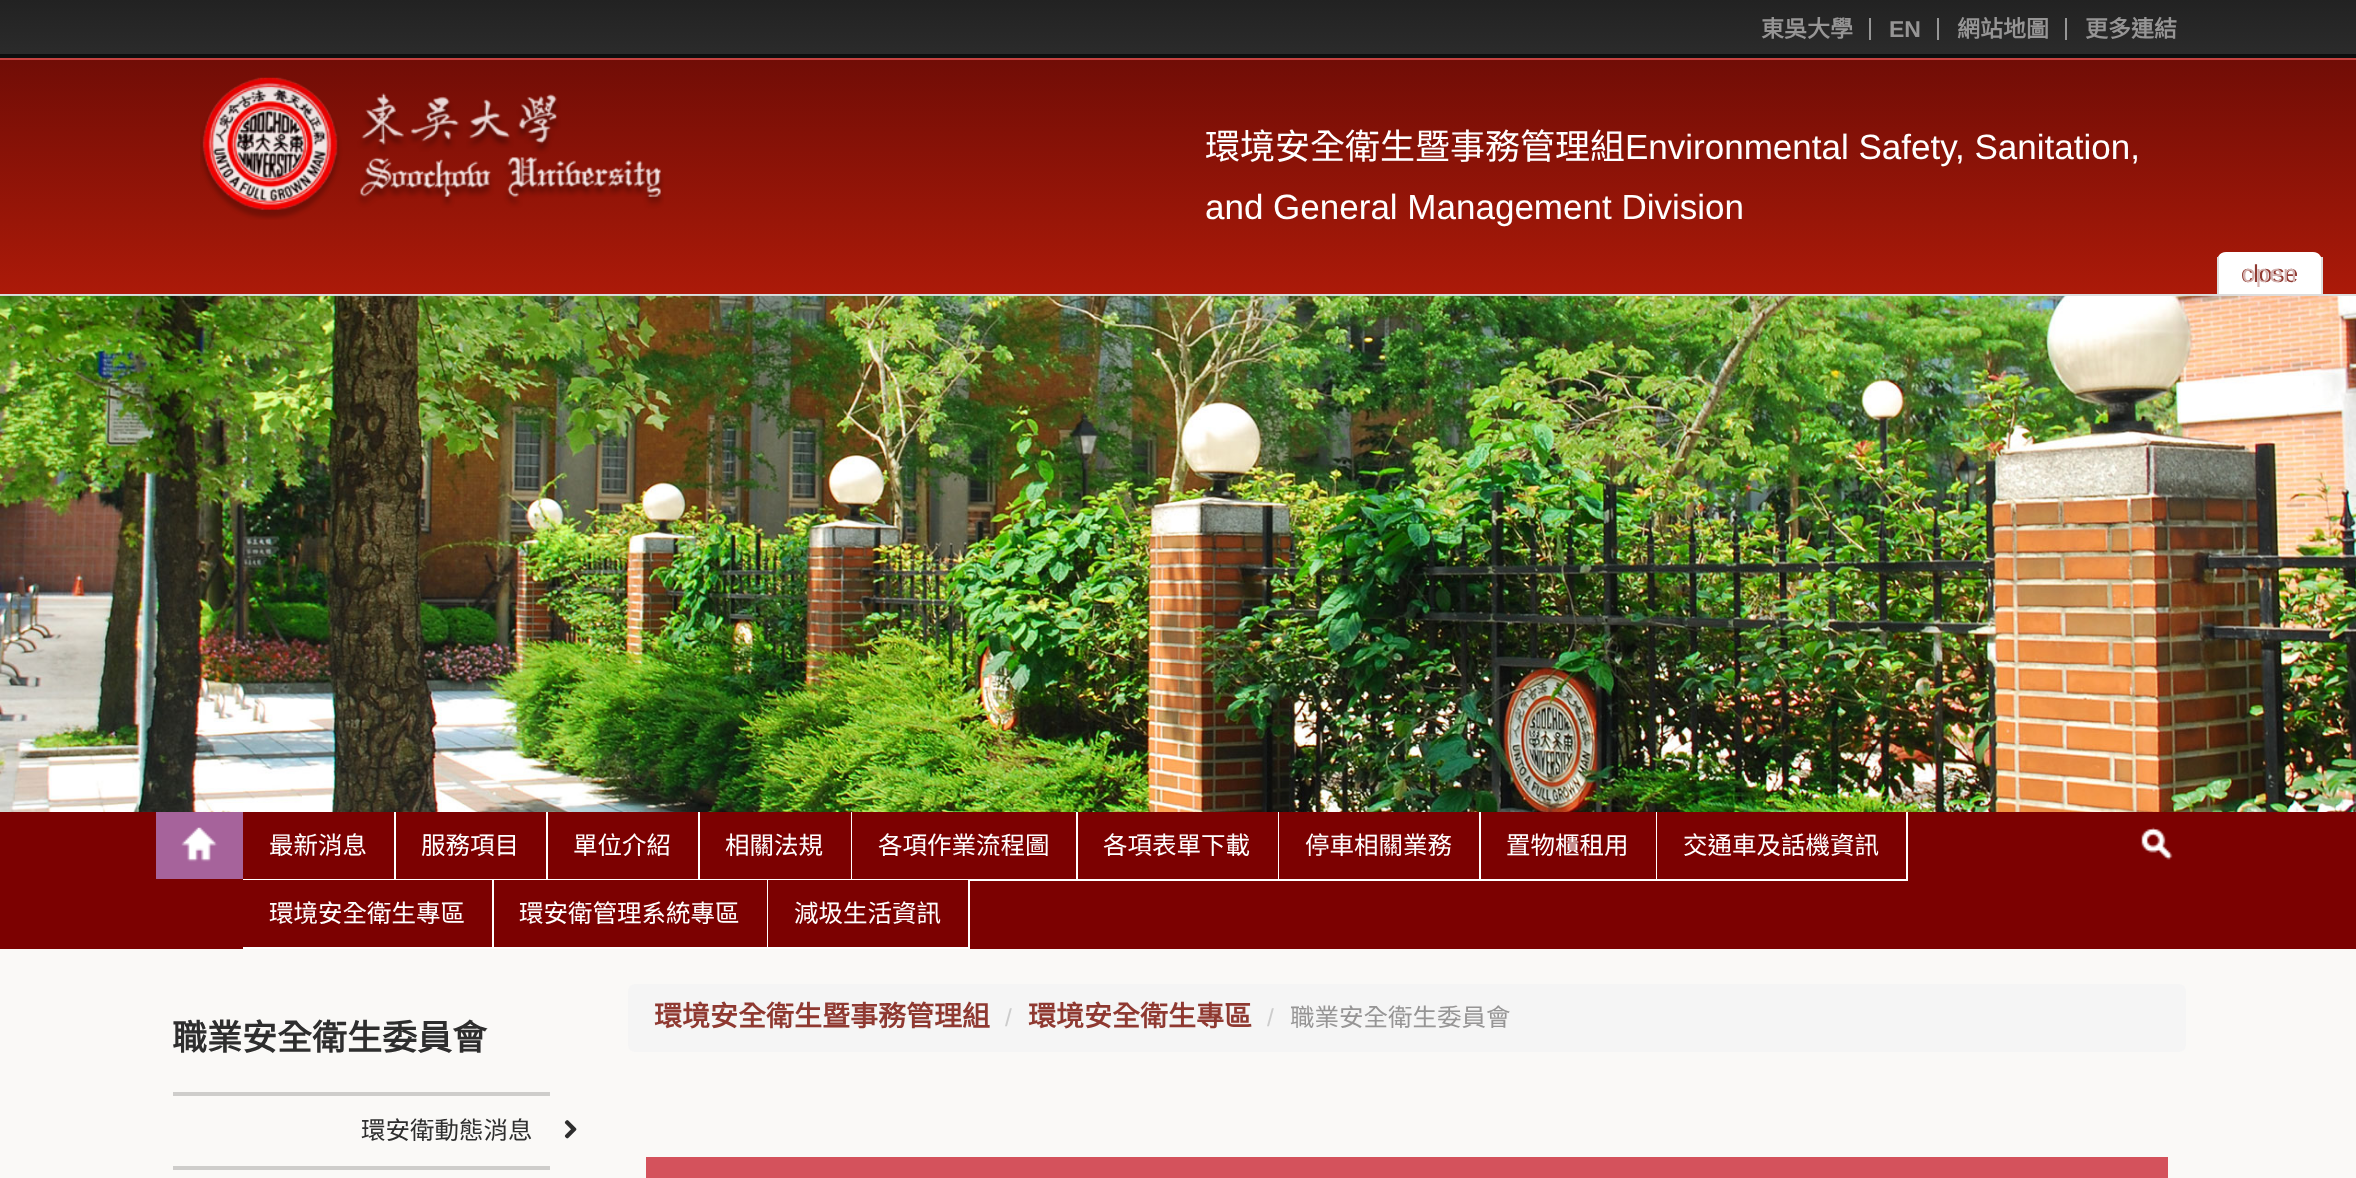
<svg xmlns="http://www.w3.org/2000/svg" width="2356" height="1178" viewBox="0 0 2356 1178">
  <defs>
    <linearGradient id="g1" gradientUnits="userSpaceOnUse" x1="1179" y1="0" x2="1179" y2="54"><stop offset="0" stop-color="rgb(34,34,34)"/><stop offset="1" stop-color="rgb(43,43,43)"/></linearGradient>
    <linearGradient id="g2" gradientUnits="userSpaceOnUse" x1="1179" y1="59" x2="1179" y2="296"><stop offset="0" stop-color="rgb(113,13,6)"/><stop offset="1" stop-color="rgb(172,26,9)"/></linearGradient>
  </defs>
  <rect width="100%" height="100%" fill="rgb(250,249,247)"/>
  <rect x="0" y="0" width="2356" height="54" fill="url(#g1)"/>
  <rect x="0" y="54" width="2356" height="4" fill="rgb(14,14,14)"/>
  <text x="1761" y="37" font-family="Noto Sans CJK TC" font-size="23" font-weight="bold" fill="rgb(150,149,149)">東吳大學</text>
  <rect x="1869" y="18" width="2" height="22" fill="rgb(150,150,150)"/>
  <text x="1889" y="37" font-family="Liberation Sans" font-size="23" font-weight="bold" fill="rgb(150,149,149)">EN</text>
  <rect x="1937" y="18" width="2" height="22" fill="rgb(150,150,150)"/>
  <text x="1957" y="37" font-family="Noto Sans CJK TC" font-size="23" font-weight="bold" fill="rgb(150,149,149)">網站地圖</text>
  <rect x="2065" y="18" width="2" height="22" fill="rgb(150,150,150)"/>
  <text x="2085" y="37" font-family="Noto Sans CJK TC" font-size="23" font-weight="bold" fill="rgb(150,149,149)">更多連結</text>
  <rect x="0" y="60" width="2356" height="234" fill="url(#g2)"/>
  <rect x="0" y="58" width="2356" height="2" fill="rgb(200,67,65)"/>
  <image x="200" y="77" width="464" height="143" href="pic1.png"/>
  <text x="1205" y="159" font-family="Noto Sans CJK TC" font-size="35" fill="rgb(255,255,255)">環境安全衛生暨事務管理組</text>
  <g font-family="Liberation Sans" font-size="35" fill="rgb(255,255,255)">
    <text x="1625" y="159">Environmental Safety, Sanitation,</text>
    <text x="1205" y="219">and General Management Division</text>
  </g>
  <rect x="0" y="294" width="2356" height="2" fill="rgb(221,221,221)"/>
  <path d="M2226 252H2313C2318 252 2322 256 2322 261V296H2217V261C2217 256 2221 252 2226 252Z" fill="rgb(255,255,255)"/>
  <rect x="2321" y="257" width="2" height="39" fill="rgb(221,221,221)"/>
  <rect x="2217" y="294" width="105" height="2" fill="rgb(221,221,221)"/>
  <rect x="2217" y="257" width="2" height="39" fill="rgb(221,221,221)"/>
  <text x="2241" y="282" font-family="Liberation Sans" font-size="24.5" fill="rgb(143,57,49)">close</text>
  <text x="2242" y="282" font-family="Liberation Sans" font-size="24.5" fill="rgb(212,179,176)">open</text>
  <image x="0" y="295" width="2356" height="517" href="pic2.png"/>
  <rect x="0" y="812" width="2356" height="137" fill="rgb(124,1,1)"/>
  <rect x="156" y="812" width="87" height="67" fill="rgb(166,99,155)"/>
  <image x="181" y="827" width="37" height="35" href="pic3.png"/>
  <rect x="394" y="812" width="2" height="68" fill="rgb(255,255,255)"/>
  <rect x="243" y="879" width="153" height="1" fill="rgb(255,255,255)"/>
  <text x="269" y="854" font-family="Noto Sans CJK TC" font-size="24.5" fill="rgb(255,255,255)">最新消息</text>
  <rect x="546" y="812" width="2" height="68" fill="rgb(255,255,255)"/>
  <rect x="396" y="879" width="152" height="1" fill="rgb(255,255,255)"/>
  <text x="421" y="854" font-family="Noto Sans CJK TC" font-size="24.5" fill="rgb(255,255,255)">服務項目</text>
  <rect x="698" y="812" width="2" height="68" fill="rgb(255,255,255)"/>
  <rect x="548" y="879" width="152" height="1" fill="rgb(255,255,255)"/>
  <text x="573" y="854" font-family="Noto Sans CJK TC" font-size="24.5" fill="rgb(255,255,255)">單位介紹</text>
  <rect x="851" y="812" width="1" height="68" fill="rgb(255,255,255)"/>
  <rect x="700" y="879" width="152" height="1" fill="rgb(255,255,255)"/>
  <text x="725" y="854" font-family="Noto Sans CJK TC" font-size="24.5" fill="rgb(255,255,255)">相關法規</text>
  <rect x="1076" y="812" width="2" height="68" fill="rgb(255,255,255)"/>
  <rect x="852" y="879" width="226" height="2" fill="rgb(255,255,255)"/>
  <text x="878" y="854" font-family="Noto Sans CJK TC" font-size="24.5" fill="rgb(255,255,255)">各項作業流程圖</text>
  <rect x="1278" y="812" width="1" height="68" fill="rgb(255,255,255)"/>
  <rect x="1078" y="879" width="201" height="2" fill="rgb(255,255,255)"/>
  <text x="1103" y="854" font-family="Noto Sans CJK TC" font-size="24.5" fill="rgb(255,255,255)">各項表單下載</text>
  <rect x="1479" y="812" width="2" height="68" fill="rgb(255,255,255)"/>
  <rect x="1279" y="879" width="202" height="2" fill="rgb(255,255,255)"/>
  <text x="1305" y="854" font-family="Noto Sans CJK TC" font-size="24.5" fill="rgb(255,255,255)">停車相關業務</text>
  <rect x="1656" y="812" width="1" height="68" fill="rgb(255,255,255)"/>
  <rect x="1481" y="879" width="176" height="2" fill="rgb(255,255,255)"/>
  <text x="1506" y="854" font-family="Noto Sans CJK TC" font-size="24.5" fill="rgb(255,255,255)">置物櫃租用</text>
  <rect x="1906" y="812" width="2" height="68" fill="rgb(255,255,255)"/>
  <rect x="1657" y="879" width="251" height="2" fill="rgb(255,255,255)"/>
  <text x="1683" y="854" font-family="Noto Sans CJK TC" font-size="24.5" fill="rgb(255,255,255)">交通車及話機資訊</text>
  <rect x="492" y="880" width="2" height="69" fill="rgb(255,255,255)"/>
  <rect x="243" y="947" width="251" height="2" fill="rgb(255,255,255)"/>
  <text x="269" y="922" font-family="Noto Sans CJK TC" font-size="24.5" fill="rgb(255,255,255)">環境安全衛生專區</text>
  <rect x="767" y="880" width="1" height="69" fill="rgb(255,255,255)"/>
  <rect x="494" y="947" width="274" height="2" fill="rgb(255,255,255)"/>
  <text x="519" y="922" font-family="Noto Sans CJK TC" font-size="24.5" fill="rgb(255,255,255)">環安衛管理系統專區</text>
  <rect x="852" y="880" width="116" height="1" fill="rgb(124,1,1)"/>
  <rect x="968" y="880" width="2" height="69" fill="rgb(255,255,255)"/>
  <rect x="768" y="947" width="202" height="2" fill="rgb(255,255,255)"/>
  <text x="794" y="922" font-family="Noto Sans CJK TC" font-size="24.5" fill="rgb(255,255,255)">減圾生活資訊</text>
  <image x="2141" y="827" width="32" height="33" href="pic4.png"/>
  <rect x="628" y="984" width="1558" height="68" rx="7" fill="rgb(245,245,245)"/>
  <text x="654" y="1026" font-family="Noto Sans CJK TC" font-size="28" font-weight="bold" fill="rgb(143,57,49)">環境安全衛生暨事務管理組</text>
  <text x="1005" y="1026" font-family="Liberation Sans" font-size="24.5" fill="rgb(204,204,204)">/</text>
  <text x="1028" y="1026" font-family="Noto Sans CJK TC" font-size="28" font-weight="bold" fill="rgb(143,57,49)">環境安全衛生專區</text>
  <text x="1267" y="1026" font-family="Liberation Sans" font-size="24.5" fill="rgb(204,204,204)">/</text>
  <text x="1290" y="1026" font-family="Noto Sans CJK TC" font-size="24.5" fill="rgb(150,149,149)">職業安全衛生委員會</text>
  <rect x="646" y="1157" width="1522" height="21" fill="rgb(212,82,92)"/>
  <rect x="173" y="1092" width="377" height="4" fill="rgb(206,205,203)"/>
  <text x="172" y="1050" font-family="Noto Sans CJK TC" font-size="35" font-weight="bold" fill="rgb(46,46,46)">職業安全衛生委員會</text>
  <rect x="173" y="1166" width="377" height="4" fill="rgb(206,205,203)"/>
  <text x="361" y="1139" font-family="Noto Sans CJK TC" font-size="24.5" fill="rgb(46,46,46)">環安衛動態消息</text>
  <image x="564" y="1120" width="13" height="19" href="pic5.png"/>
</svg>
